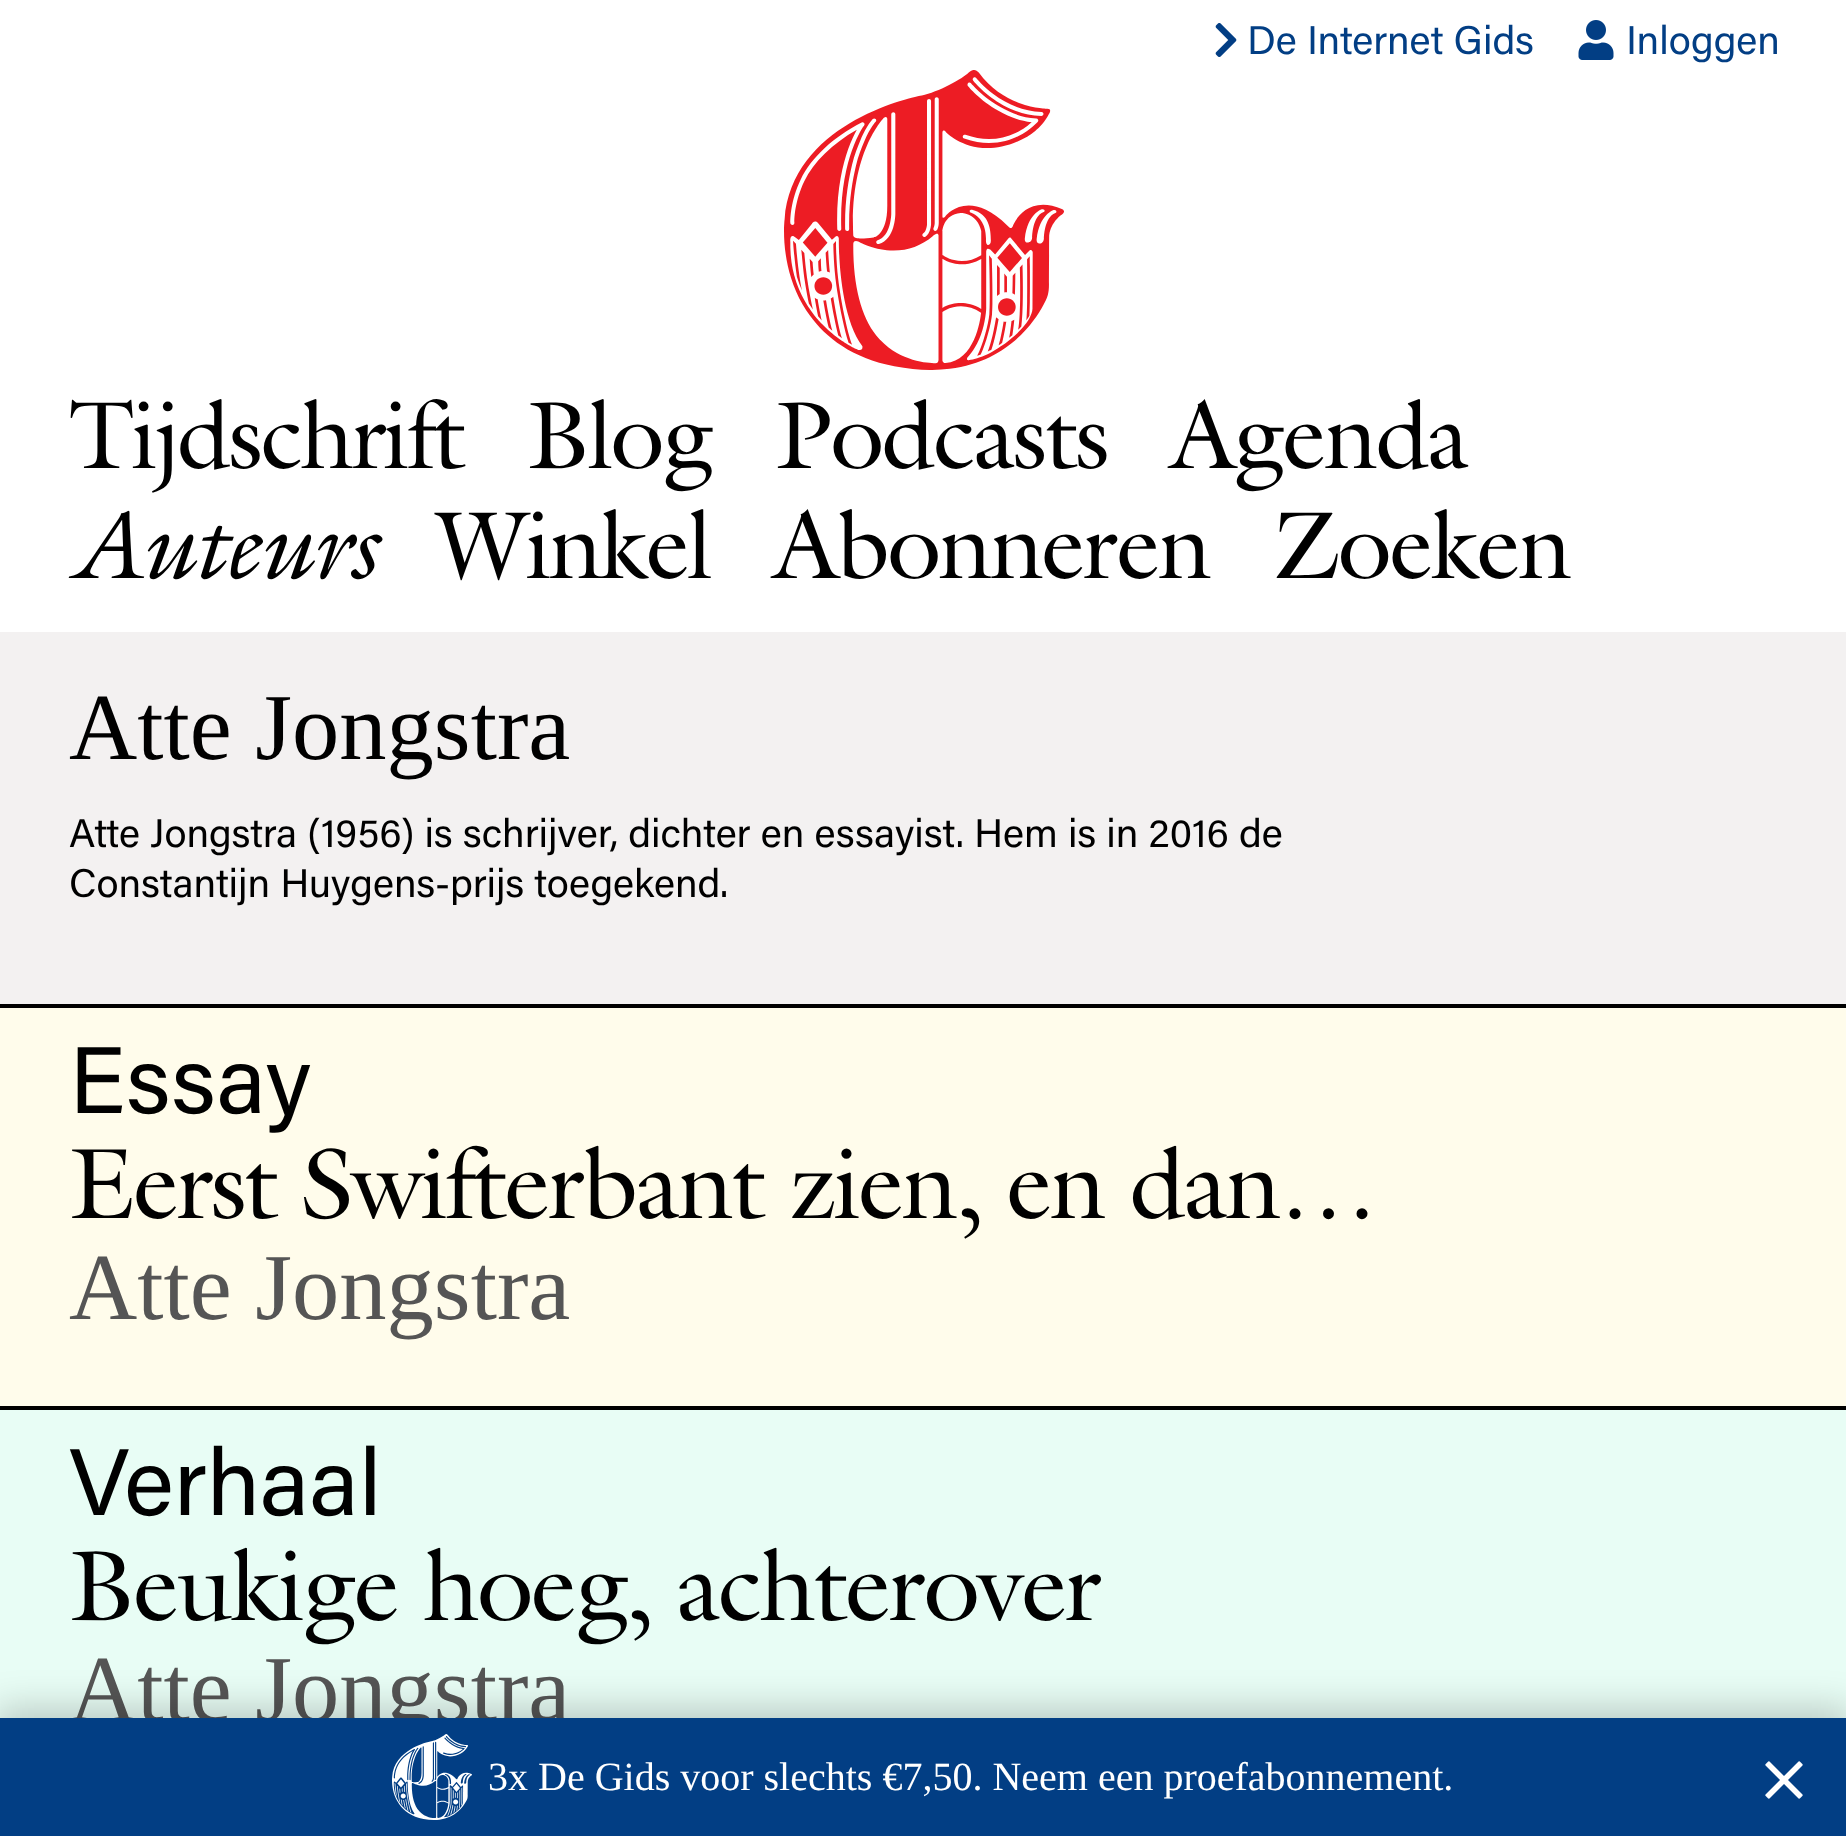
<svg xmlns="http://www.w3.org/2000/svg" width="1846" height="1836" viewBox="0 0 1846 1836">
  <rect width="100%" height="100%" fill="rgb(255,255,255)"/>
  <image x="1215" y="23" width="22" height="34" href="pic1.png"/>
  <text x="1247" y="54" font-family="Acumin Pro" font-size="40" fill="rgb(2,62,132)">De Internet Gids</text>
  <image x="1578" y="20" width="36" height="40" href="pic2.png"/>
  <text x="1626" y="54" font-family="Acumin Pro" font-size="40" fill="rgb(2,62,132)">Inloggen</text>
  <image x="784" y="70" width="280" height="300" href="pic3.png"/>
  <g font-family="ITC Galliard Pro" font-size="96" letter-spacing="-2.4" fill="rgb(0,0,0)">
    <text x="69" y="468">Tijdschrift</text>
    <text x="527" y="468">Blog</text>
    <text x="775" y="468">Podcasts</text>
    <text x="1170" y="468">Agenda</text>
  </g>
  <text x="69" y="578" font-family="ITC Galliard Pro" font-size="96" font-style="italic" letter-spacing="-2.4" fill="rgb(0,0,0)">Auteurs</text>
  <g font-family="ITC Galliard Pro" font-size="96" letter-spacing="-2.4" fill="rgb(0,0,0)">
    <text x="437" y="578">Winkel</text>
    <text x="773" y="578">Abonneren</text>
    <text x="1273" y="578">Zoeken</text>
  </g>
  <rect x="0" y="632" width="1846" height="372" fill="rgb(243,241,241)"/>
  <rect x="0" y="1004" width="1846" height="4" fill="rgb(0,0,0)"/>
  <text x="69" y="759" font-family="Liberation Serif" font-size="94.5" fill="rgb(0,0,0)">Atte Jongstra</text>
  <g font-family="Acumin Pro" font-size="40" fill="rgb(0,0,0)">
    <text>
      <tspan x="69" y="847">Atte Jongstra (1956) is schrijver, dichter en essayist. Hem is in 2016 de</tspan>
      <tspan x="69" y="897">Constantijn Huygens-prijs toegekend.</tspan>
    </text>
  </g>
  <rect x="0" y="1008" width="1846" height="398" fill="rgb(255,252,235)"/>
  <rect x="0" y="1406" width="1846" height="4" fill="rgb(0,0,0)"/>
  <text x="69" y="1113" font-family="Acumin Pro" font-size="94.5" fill="rgb(0,0,0)">Essay</text>
  <text x="69" y="1218" font-family="ITC Galliard Pro" font-size="100.6" letter-spacing="-2.5" fill="rgb(0,0,0)">Eerst Swifterbant zien, en dan…</text>
  <text x="69" y="1319" font-family="Liberation Serif" font-size="94.5" fill="rgb(85,85,85)">Atte Jongstra</text>
  <rect x="0" y="1410" width="1846" height="308" fill="rgb(232,253,245)"/>
  <text x="69" y="1515" font-family="Acumin Pro" font-size="94.5" fill="rgb(0,0,0)">Verhaal</text>
  <text x="69" y="1620" font-family="ITC Galliard Pro" font-size="100.6" letter-spacing="-2.5" fill="rgb(0,0,0)">Beukige hoeg, achterover</text>
  <text x="69" y="1721" font-family="Liberation Serif" font-size="94.5" fill="rgb(85,85,85)">Atte Jongstra</text>
  <rect x="-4" y="1708" width="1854" height="126" fill="rgba(0,0,0,0.2)" filter="blur(18px)"/>
  <rect x="0" y="1718" width="1846" height="118" fill="rgb(2,62,132)"/>
  <image x="392" y="1734" width="80" height="86" href="pic4.png"/>
  <text x="488" y="1790" font-family="Liberation Serif" font-size="40" fill="rgb(255,255,255)">3x De Gids voor slechts €7,50. Neem een proefabonnement.</text>
  <image x="1765" y="1761" width="38" height="38" href="pic5.png"/>
</svg>
